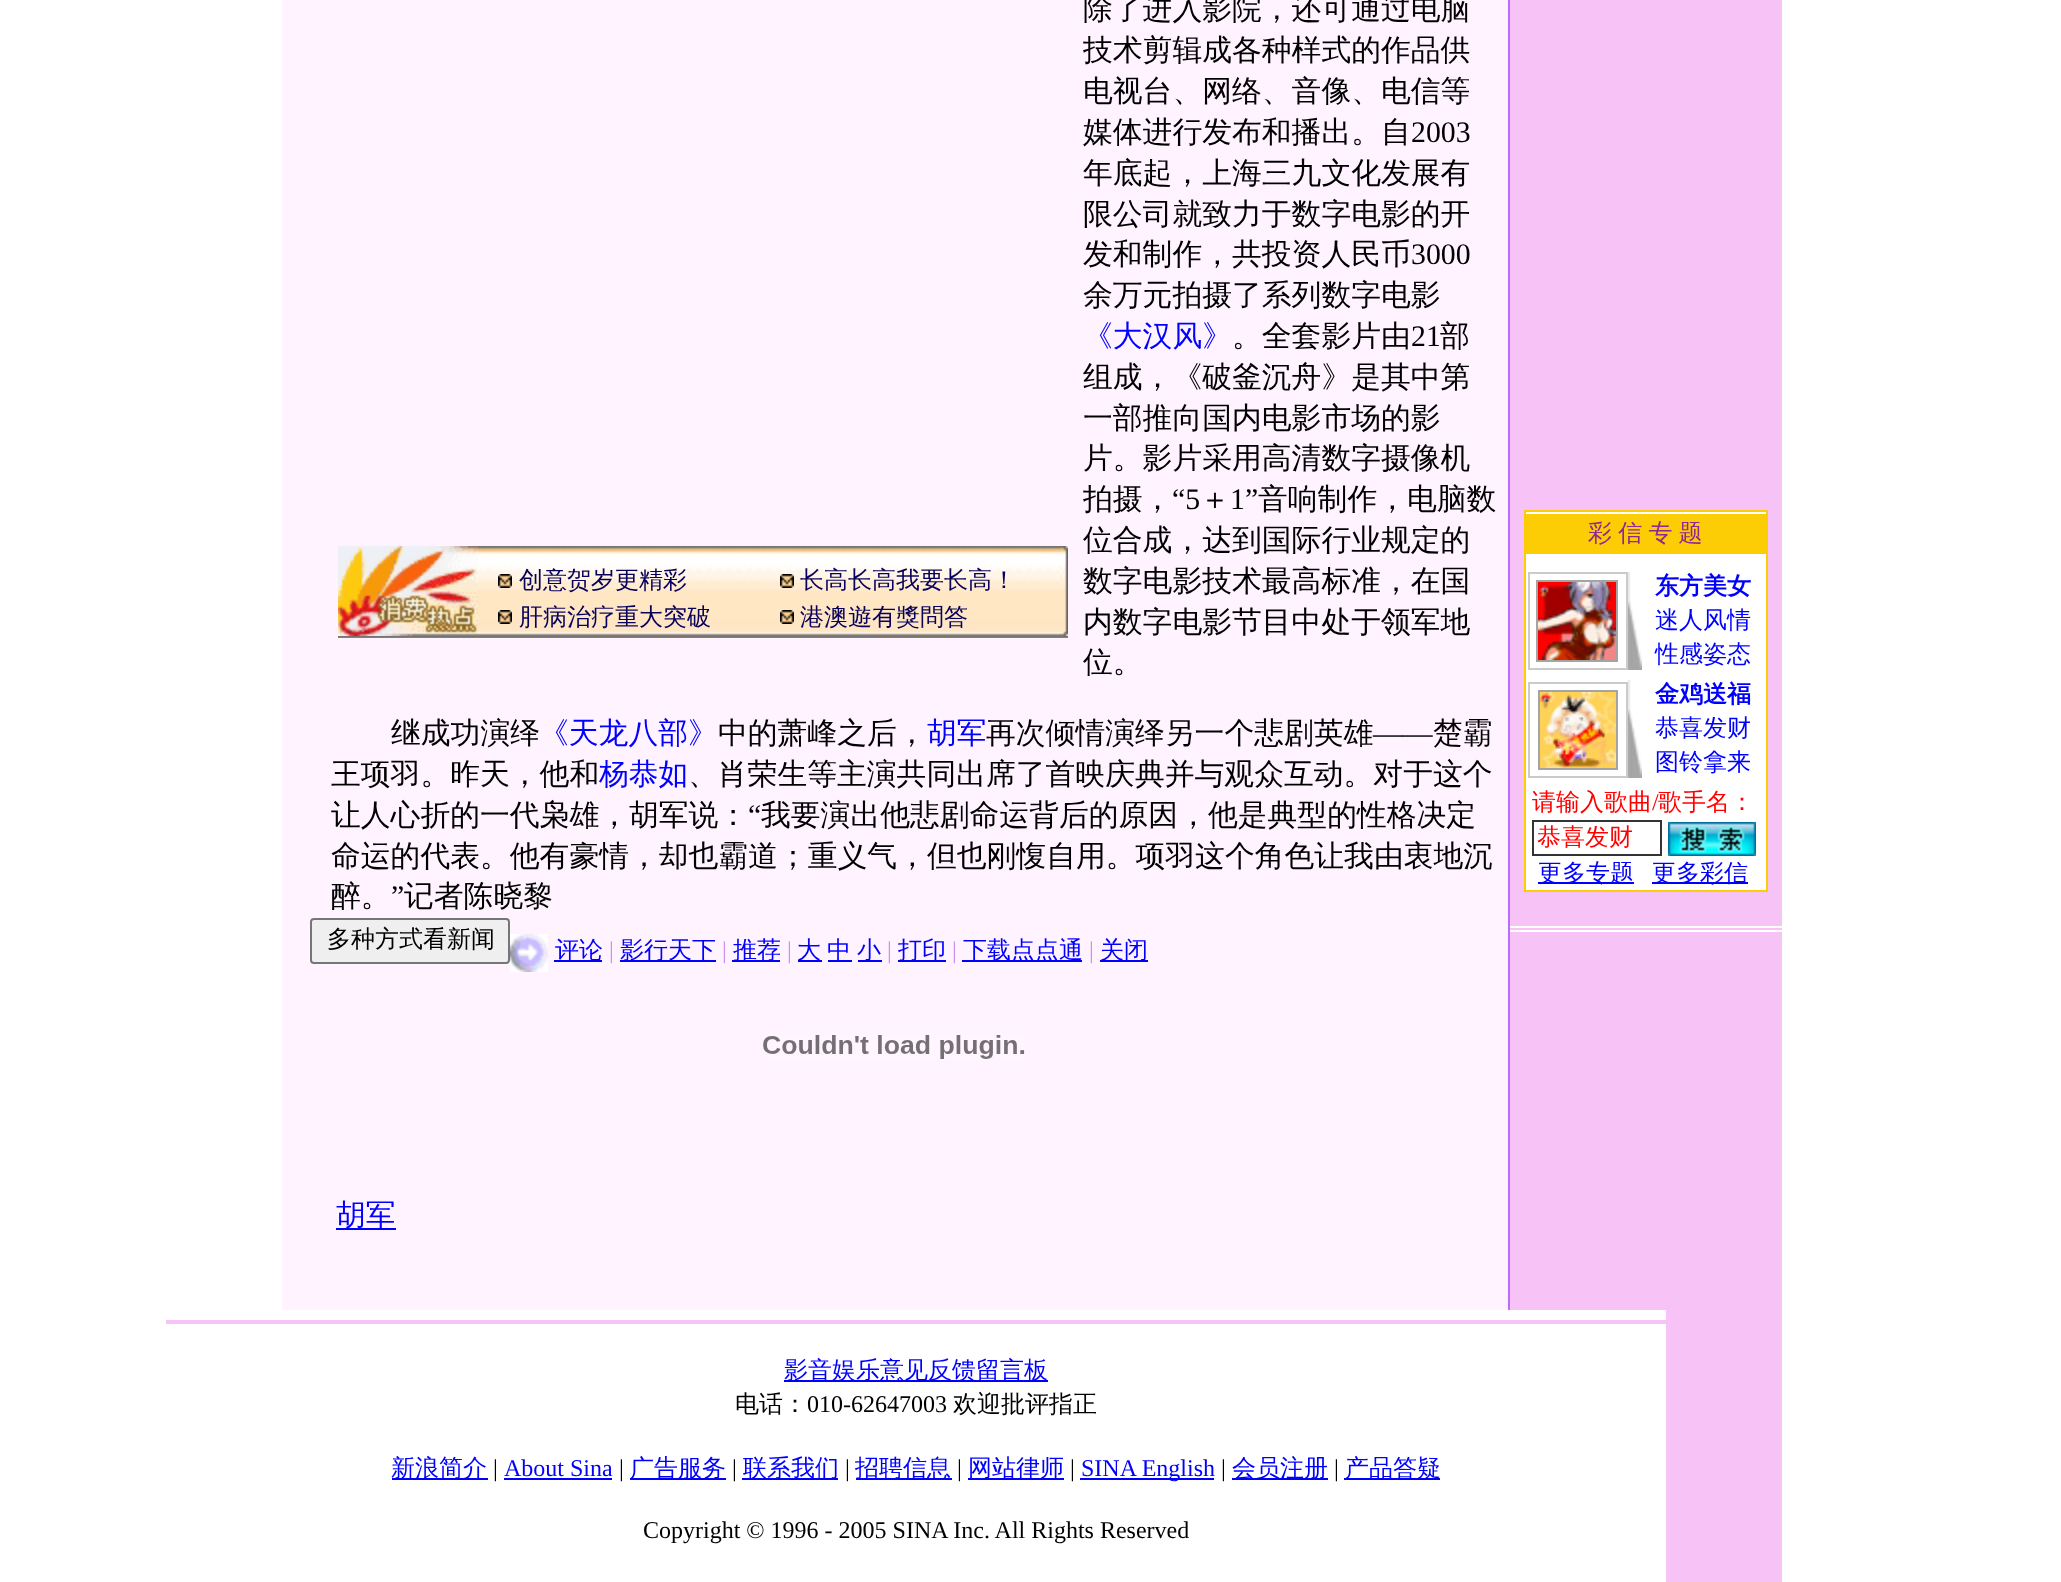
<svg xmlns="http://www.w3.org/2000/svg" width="2061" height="1582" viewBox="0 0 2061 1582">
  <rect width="100%" height="100%" fill="rgb(255,255,255)"/>
  <image x="1666" y="1310" width="116" height="272" href="pic1.png"/>
  <rect x="282" y="0" width="1226" height="1310" fill="rgb(255,243,255)"/>
  <g font-family="WenQuanYi Zen Hei" font-size="29.8" font-weight="500" fill="rgb(0,0,0)">
    <text>
      <tspan x="1083" y="19">除了进入影院，还可通过电脑</tspan>
      <tspan x="1083" y="60">技术剪辑成各种样式的作品供</tspan>
      <tspan x="1083" y="101">电视台、网络、音像、电信等</tspan>
      <tspan x="1083" y="142">媒体进行发布和播出。自</tspan>
    </text>
  </g>
  <text x="1411" y="142" font-family="Liberation Serif" font-size="29.8" fill="rgb(0,0,0)">2003</text>
  <g font-family="WenQuanYi Zen Hei" font-size="29.8" font-weight="500" fill="rgb(0,0,0)">
    <text>
      <tspan x="1083" y="183">年底起，上海三九文化发展有</tspan>
      <tspan x="1083" y="224">限公司就致力于数字电影的开</tspan>
      <tspan x="1083" y="264">发和制作，共投资人民币</tspan>
    </text>
  </g>
  <text x="1411" y="264" font-family="Liberation Serif" font-size="29.8" fill="rgb(0,0,0)">3000</text>
  <text x="1083" y="305" font-family="WenQuanYi Zen Hei" font-size="29.8" font-weight="500" fill="rgb(0,0,0)">余万元拍摄了系列数字电影</text>
  <text x="1083" y="346" font-family="WenQuanYi Zen Hei" font-size="29.8" font-weight="500" fill="rgb(0,0,255)">《大汉风》</text>
  <text x="1232" y="346" font-family="WenQuanYi Zen Hei" font-size="29.8" font-weight="500" fill="rgb(0,0,0)">。全套影片由</text>
  <text x="1411" y="346" font-family="Liberation Serif" font-size="29.8" fill="rgb(0,0,0)">21</text>
  <g font-family="WenQuanYi Zen Hei" font-size="29.8" font-weight="500" fill="rgb(0,0,0)">
    <text x="1440" y="346">部</text>
    <text>
      <tspan x="1083" y="387">组成，《破釜沉舟》是其中第</tspan>
      <tspan x="1083" y="428">一部推向国内电影市场的影</tspan>
      <tspan x="1083" y="468">片。影片采用高清数字摄像机</tspan>
      <tspan x="1083" y="509">拍摄，</tspan>
    </text>
  </g>
  <text x="1172" y="509" font-family="Liberation Serif" font-size="29.8" fill="rgb(0,0,0)">“5</text>
  <text x="1200" y="509" font-family="WenQuanYi Zen Hei" font-size="29.8" font-weight="500" fill="rgb(0,0,0)">＋</text>
  <text x="1230" y="509" font-family="Liberation Serif" font-size="29.8" fill="rgb(0,0,0)">1”</text>
  <g font-family="WenQuanYi Zen Hei" font-size="29.8" font-weight="500" fill="rgb(0,0,0)">
    <text x="1258" y="509">音响制作，电脑数</text>
    <text x="1083" y="550">位合成，达到国际行业规定的</text>
  </g>
  <image x="338" y="546" width="730" height="92" href="pic2.png"/>
  <image x="338" y="546" width="140" height="90" href="pic3.png"/>
  <image x="498" y="574" width="14" height="14" href="pic4.png"/>
  <text x="519" y="588" font-family="WenQuanYi Zen Hei" font-size="24" font-weight="500" fill="rgb(7,1,91)">创意贺岁更精彩</text>
  <image x="780" y="574" width="14" height="14" href="pic4.png"/>
  <text x="800" y="588" font-family="WenQuanYi Zen Hei" font-size="24" font-weight="500" fill="rgb(7,1,91)">长高长高我要长高！</text>
  <image x="498" y="610" width="14" height="14" href="pic4.png"/>
  <text x="519" y="625" font-family="WenQuanYi Zen Hei" font-size="24" font-weight="500" fill="rgb(7,1,91)">肝病治疗重大突破</text>
  <image x="780" y="610" width="14" height="14" href="pic4.png"/>
  <text x="800" y="625" font-family="WenQuanYi Zen Hei" font-size="24" font-weight="500" fill="rgb(7,1,91)">港澳遊有獎問答</text>
  <image x="1060" y="546" width="8" height="90" href="pic5.png"/>
  <g font-family="WenQuanYi Zen Hei" font-size="29.8" font-weight="500" fill="rgb(0,0,0)">
    <text>
      <tspan x="1083" y="591">数字电影技术最高标准，在国</tspan>
      <tspan x="1083" y="632">内数字电影节目中处于领军地</tspan>
      <tspan x="1083" y="672">位。</tspan>
    </text>
    <text x="391" y="743">继成功演绎</text>
  </g>
  <text x="539" y="743" font-family="WenQuanYi Zen Hei" font-size="29.8" font-weight="500" fill="rgb(0,0,255)">《天龙八部》</text>
  <text x="718" y="743" font-family="WenQuanYi Zen Hei" font-size="29.8" font-weight="500" fill="rgb(0,0,0)">中的萧峰之后，</text>
  <text x="927" y="743" font-family="WenQuanYi Zen Hei" font-size="29.8" font-weight="500" fill="rgb(0,0,255)">胡军</text>
  <text x="986" y="743" font-family="WenQuanYi Zen Hei" font-size="29.8" font-weight="500" fill="rgb(0,0,0)">再次倾情演绎另一个悲剧英雄</text>
  <text x="1373" y="743" font-family="Liberation Serif" font-size="29.8" fill="rgb(0,0,0)">——</text>
  <g font-family="WenQuanYi Zen Hei" font-size="29.8" font-weight="500" fill="rgb(0,0,0)">
    <text x="1433" y="743">楚霸</text>
    <text x="331" y="784">王项羽。昨天，他和</text>
  </g>
  <text x="599" y="784" font-family="WenQuanYi Zen Hei" font-size="29.8" font-weight="500" fill="rgb(0,0,255)">杨恭如</text>
  <g font-family="WenQuanYi Zen Hei" font-size="29.8" font-weight="500" fill="rgb(0,0,0)">
    <text x="688" y="784">、肖荣生等主演共同出席了首映庆典并与观众互动。对于这个</text>
    <text x="331" y="825">让人心折的一代枭雄，胡军说：</text>
  </g>
  <text x="748" y="825" font-family="Liberation Serif" font-size="29.8" fill="rgb(0,0,0)">“</text>
  <g font-family="WenQuanYi Zen Hei" font-size="29.8" font-weight="500" fill="rgb(0,0,0)">
    <text x="761" y="825">我要演出他悲剧命运背后的原因，他是典型的性格决定</text>
    <text>
      <tspan x="331" y="866">命运的代表。他有豪情，却也霸道；重义气，但也刚愎自用。项羽这个角色让我由衷地沉</tspan>
      <tspan x="331" y="906">醉。</tspan>
    </text>
  </g>
  <text x="391" y="906" font-family="Liberation Serif" font-size="29.8" fill="rgb(0,0,0)">”</text>
  <text x="404" y="906" font-family="WenQuanYi Zen Hei" font-size="29.8" font-weight="500" fill="rgb(0,0,0)">记者陈晓黎</text>
  <rect x="311" y="919" width="198" height="44" rx="3" fill="rgb(239,239,239)" stroke="rgb(118,118,118)" stroke-width="2"/>
  <text x="327" y="947" font-family="WenQuanYi Zen Hei" font-size="24" font-weight="500" fill="rgb(0,0,0)">多种方式看新闻</text>
  <image x="510" y="934" width="38" height="38" href="pic6.png"/>
  <rect x="554" y="960" width="48" height="2" fill="rgb(0,0,255)"/>
  <text x="555" y="958" font-family="WenQuanYi Zen Hei" font-size="24" font-weight="500" fill="rgb(0,0,255)">评论</text>
  <text x="609" y="958" font-family="Liberation Serif" font-size="24" fill="rgb(202,144,239)">|</text>
  <rect x="620" y="960" width="96" height="2" fill="rgb(0,0,255)"/>
  <text x="620" y="958" font-family="WenQuanYi Zen Hei" font-size="24" font-weight="500" fill="rgb(0,0,255)">影行天下</text>
  <text x="722" y="958" font-family="Liberation Serif" font-size="24" fill="rgb(202,144,239)">|</text>
  <rect x="732" y="960" width="48" height="2" fill="rgb(0,0,255)"/>
  <text x="733" y="958" font-family="WenQuanYi Zen Hei" font-size="24" font-weight="500" fill="rgb(0,0,255)">推荐</text>
  <text x="787" y="958" font-family="Liberation Serif" font-size="24" fill="rgb(202,144,239)">|</text>
  <rect x="798" y="960" width="24" height="2" fill="rgb(0,0,255)"/>
  <text x="797" y="958" font-family="WenQuanYi Zen Hei" font-size="24" font-weight="500" fill="rgb(0,0,255)">大</text>
  <rect x="828" y="960" width="24" height="2" fill="rgb(0,0,255)"/>
  <text x="827" y="958" font-family="WenQuanYi Zen Hei" font-size="24" font-weight="500" fill="rgb(0,0,255)">中</text>
  <rect x="858" y="960" width="24" height="2" fill="rgb(0,0,255)"/>
  <text x="857" y="958" font-family="WenQuanYi Zen Hei" font-size="24" font-weight="500" fill="rgb(0,0,255)">小</text>
  <text x="887" y="958" font-family="Liberation Serif" font-size="24" fill="rgb(202,144,239)">|</text>
  <rect x="898" y="960" width="48" height="2" fill="rgb(0,0,255)"/>
  <text x="898" y="958" font-family="WenQuanYi Zen Hei" font-size="24" font-weight="500" fill="rgb(0,0,255)">打印</text>
  <text x="952" y="958" font-family="Liberation Serif" font-size="24" fill="rgb(202,144,239)">|</text>
  <rect x="962" y="960" width="120" height="2" fill="rgb(0,0,255)"/>
  <text x="963" y="958" font-family="WenQuanYi Zen Hei" font-size="24" font-weight="500" fill="rgb(0,0,255)">下载点点通</text>
  <text x="1089" y="958" font-family="Liberation Serif" font-size="24" fill="rgb(202,144,239)">|</text>
  <rect x="1100" y="960" width="48" height="2" fill="rgb(0,0,255)"/>
  <text x="1100" y="958" font-family="WenQuanYi Zen Hei" font-size="24" font-weight="500" fill="rgb(0,0,255)">关闭</text>
  <image x="763" y="1035" width="262" height="24" href="pic7.png"/>
  <rect x="1508" y="0" width="2" height="1310" fill="rgb(189,107,255)"/>
  <rect x="1510" y="0" width="272" height="1310" fill="rgb(247,194,245)"/>
  <rect x="1525" y="511" width="242" height="380" fill="rgb(255,255,255)" stroke="rgb(252,204,4)" stroke-width="2"/>
  <rect x="1526" y="514" width="240" height="40" fill="rgb(252,204,4)"/>
  <text x="1588" y="541" word-spacing="-1" font-family="WenQuanYi Zen Hei" font-size="24" font-weight="500" fill="rgb(146,39,143)">彩 信 专 题</text>
  <rect x="1529" y="573" width="98" height="96" fill="none" stroke="rgb(204,202,202)" stroke-width="2"/>
  <rect x="1537" y="581" width="80" height="80" fill="none" stroke="rgb(164,164,163)" stroke-width="2"/>
  <image x="1538" y="582" width="78" height="78" href="pic8.png"/>
  <image x="1628" y="572" width="14" height="98" href="pic9.png"/>
  <text x="1655" y="594" font-family="WenQuanYi Zen Hei" font-size="24" font-weight="bold" fill="rgb(0,0,255)">东方美女</text>
  <g font-family="WenQuanYi Zen Hei" font-size="24" font-weight="500" fill="rgb(0,0,255)">
    <text>
      <tspan x="1655" y="628">迷人风情</tspan>
      <tspan x="1655" y="662">性感姿态</tspan>
    </text>
  </g>
  <rect x="1529" y="683" width="98" height="94" fill="none" stroke="rgb(204,202,202)" stroke-width="2"/>
  <rect x="1539" y="691" width="78" height="78" fill="none" stroke="rgb(164,164,163)" stroke-width="2"/>
  <image x="1540" y="692" width="76" height="76" href="pic10.png"/>
  <image x="1628" y="680" width="14" height="98" href="pic9.png"/>
  <text x="1655" y="702" font-family="WenQuanYi Zen Hei" font-size="24" font-weight="bold" fill="rgb(0,0,255)">金鸡送福</text>
  <g font-family="WenQuanYi Zen Hei" font-size="24" font-weight="500" fill="rgb(0,0,255)">
    <text>
      <tspan x="1655" y="736">恭喜发财</tspan>
      <tspan x="1655" y="770">图铃拿来</tspan>
    </text>
  </g>
  <text x="1532" y="810" font-family="WenQuanYi Zen Hei" font-size="24" font-weight="500" fill="rgb(255,0,0)">请输入歌曲</text>
  <text x="1652" y="810" font-family="Liberation Serif" font-size="24" fill="rgb(255,0,0)">/</text>
  <text x="1658" y="810" font-family="WenQuanYi Zen Hei" font-size="24" font-weight="500" fill="rgb(255,0,0)">歌手名：</text>
  <rect x="1533" y="821" width="128" height="34" fill="none" stroke="rgb(51,51,51)" stroke-width="2"/>
  <text x="1537" y="845" font-family="WenQuanYi Zen Hei" font-size="24" font-weight="500" fill="rgb(255,0,0)">恭喜发财</text>
  <image x="1668" y="822" width="88" height="34" href="pic11.png"/>
  <rect x="1538" y="882" width="96" height="2" fill="rgb(0,0,255)"/>
  <text x="1538" y="881" font-family="WenQuanYi Zen Hei" font-size="24" font-weight="500" fill="rgb(0,0,255)">更多专题</text>
  <rect x="1652" y="882" width="96" height="2" fill="rgb(0,0,255)"/>
  <text x="1652" y="881" font-family="WenQuanYi Zen Hei" font-size="24" font-weight="500" fill="rgb(0,0,255)">更多彩信</text>
  <rect x="1510" y="926" width="272" height="2" fill="rgb(255,255,255)"/>
  <rect x="1510" y="930" width="272" height="2" fill="rgb(255,255,255)"/>
  <rect x="336" y="1228" width="60" height="2" fill="rgb(0,0,255)"/>
  <text x="336" y="1225" font-family="WenQuanYi Zen Hei" font-size="29.8" font-weight="500" fill="rgb(0,0,255)">胡军</text>
  <rect x="166" y="1320" width="1500" height="4" fill="rgb(247,194,245)"/>
  <rect x="784" y="1380" width="264" height="2" fill="rgb(0,0,255)"/>
  <text x="784" y="1378" font-family="WenQuanYi Zen Hei" font-size="24" font-weight="500" fill="rgb(0,0,255)">影音娱乐意见反馈留言板</text>
  <text x="735" y="1412" font-family="WenQuanYi Zen Hei" font-size="24" font-weight="500" fill="rgb(0,0,0)">电话：</text>
  <text x="807" y="1412" font-family="Liberation Serif" font-size="24" fill="rgb(0,0,0)">010-62647003</text>
  <text x="953" y="1412" font-family="WenQuanYi Zen Hei" font-size="24" font-weight="500" fill="rgb(0,0,0)">欢迎批评指正</text>
  <rect x="392" y="1478" width="96" height="2" fill="rgb(0,0,255)"/>
  <text x="391" y="1476" font-family="WenQuanYi Zen Hei" font-size="24" font-weight="500" fill="rgb(0,0,255)">新浪简介</text>
  <text x="493" y="1476" font-family="Liberation Serif" font-size="24" fill="rgb(0,0,0)">|</text>
  <text x="504" y="1476" font-family="Liberation Serif" font-size="24" fill="rgb(0,0,255)">About Sina</text>
  <rect x="504" y="1478" width="108" height="2" fill="rgb(0,0,255)"/>
  <text x="619" y="1476" font-family="Liberation Serif" font-size="24" fill="rgb(0,0,0)">|</text>
  <rect x="630" y="1478" width="96" height="2" fill="rgb(0,0,255)"/>
  <text x="630" y="1476" font-family="WenQuanYi Zen Hei" font-size="24" font-weight="500" fill="rgb(0,0,255)">广告服务</text>
  <text x="732" y="1476" font-family="Liberation Serif" font-size="24" fill="rgb(0,0,0)">|</text>
  <rect x="742" y="1478" width="96" height="2" fill="rgb(0,0,255)"/>
  <text x="743" y="1476" font-family="WenQuanYi Zen Hei" font-size="24" font-weight="500" fill="rgb(0,0,255)">联系我们</text>
  <text x="845" y="1476" font-family="Liberation Serif" font-size="24" fill="rgb(0,0,0)">|</text>
  <rect x="856" y="1478" width="96" height="2" fill="rgb(0,0,255)"/>
  <text x="855" y="1476" font-family="WenQuanYi Zen Hei" font-size="24" font-weight="500" fill="rgb(0,0,255)">招聘信息</text>
  <text x="957" y="1476" font-family="Liberation Serif" font-size="24" fill="rgb(0,0,0)">|</text>
  <rect x="968" y="1478" width="96" height="2" fill="rgb(0,0,255)"/>
  <text x="968" y="1476" font-family="WenQuanYi Zen Hei" font-size="24" font-weight="500" fill="rgb(0,0,255)">网站律师</text>
  <text x="1070" y="1476" font-family="Liberation Serif" font-size="24" fill="rgb(0,0,0)">|</text>
  <rect x="1080" y="1478" width="134" height="2" fill="rgb(0,0,255)"/>
  <text x="1081" y="1476" font-family="Liberation Serif" font-size="24" fill="rgb(0,0,255)">SINA English</text>
  <text x="1221" y="1476" font-family="Liberation Serif" font-size="24" fill="rgb(0,0,0)">|</text>
  <rect x="1232" y="1478" width="96" height="2" fill="rgb(0,0,255)"/>
  <text x="1232" y="1476" font-family="WenQuanYi Zen Hei" font-size="24" font-weight="500" fill="rgb(0,0,255)">会员注册</text>
  <text x="1334" y="1476" font-family="Liberation Serif" font-size="24" fill="rgb(0,0,0)">|</text>
  <rect x="1344" y="1478" width="96" height="2" fill="rgb(0,0,255)"/>
  <text x="1345" y="1476" font-family="WenQuanYi Zen Hei" font-size="24" font-weight="500" fill="rgb(0,0,255)">产品答疑</text>
  <text x="643" y="1538" font-family="Liberation Serif" font-size="24" fill="rgb(0,0,0)">Copyright © 1996 - 2005 SINA Inc. All Rights Reserved</text>
</svg>
